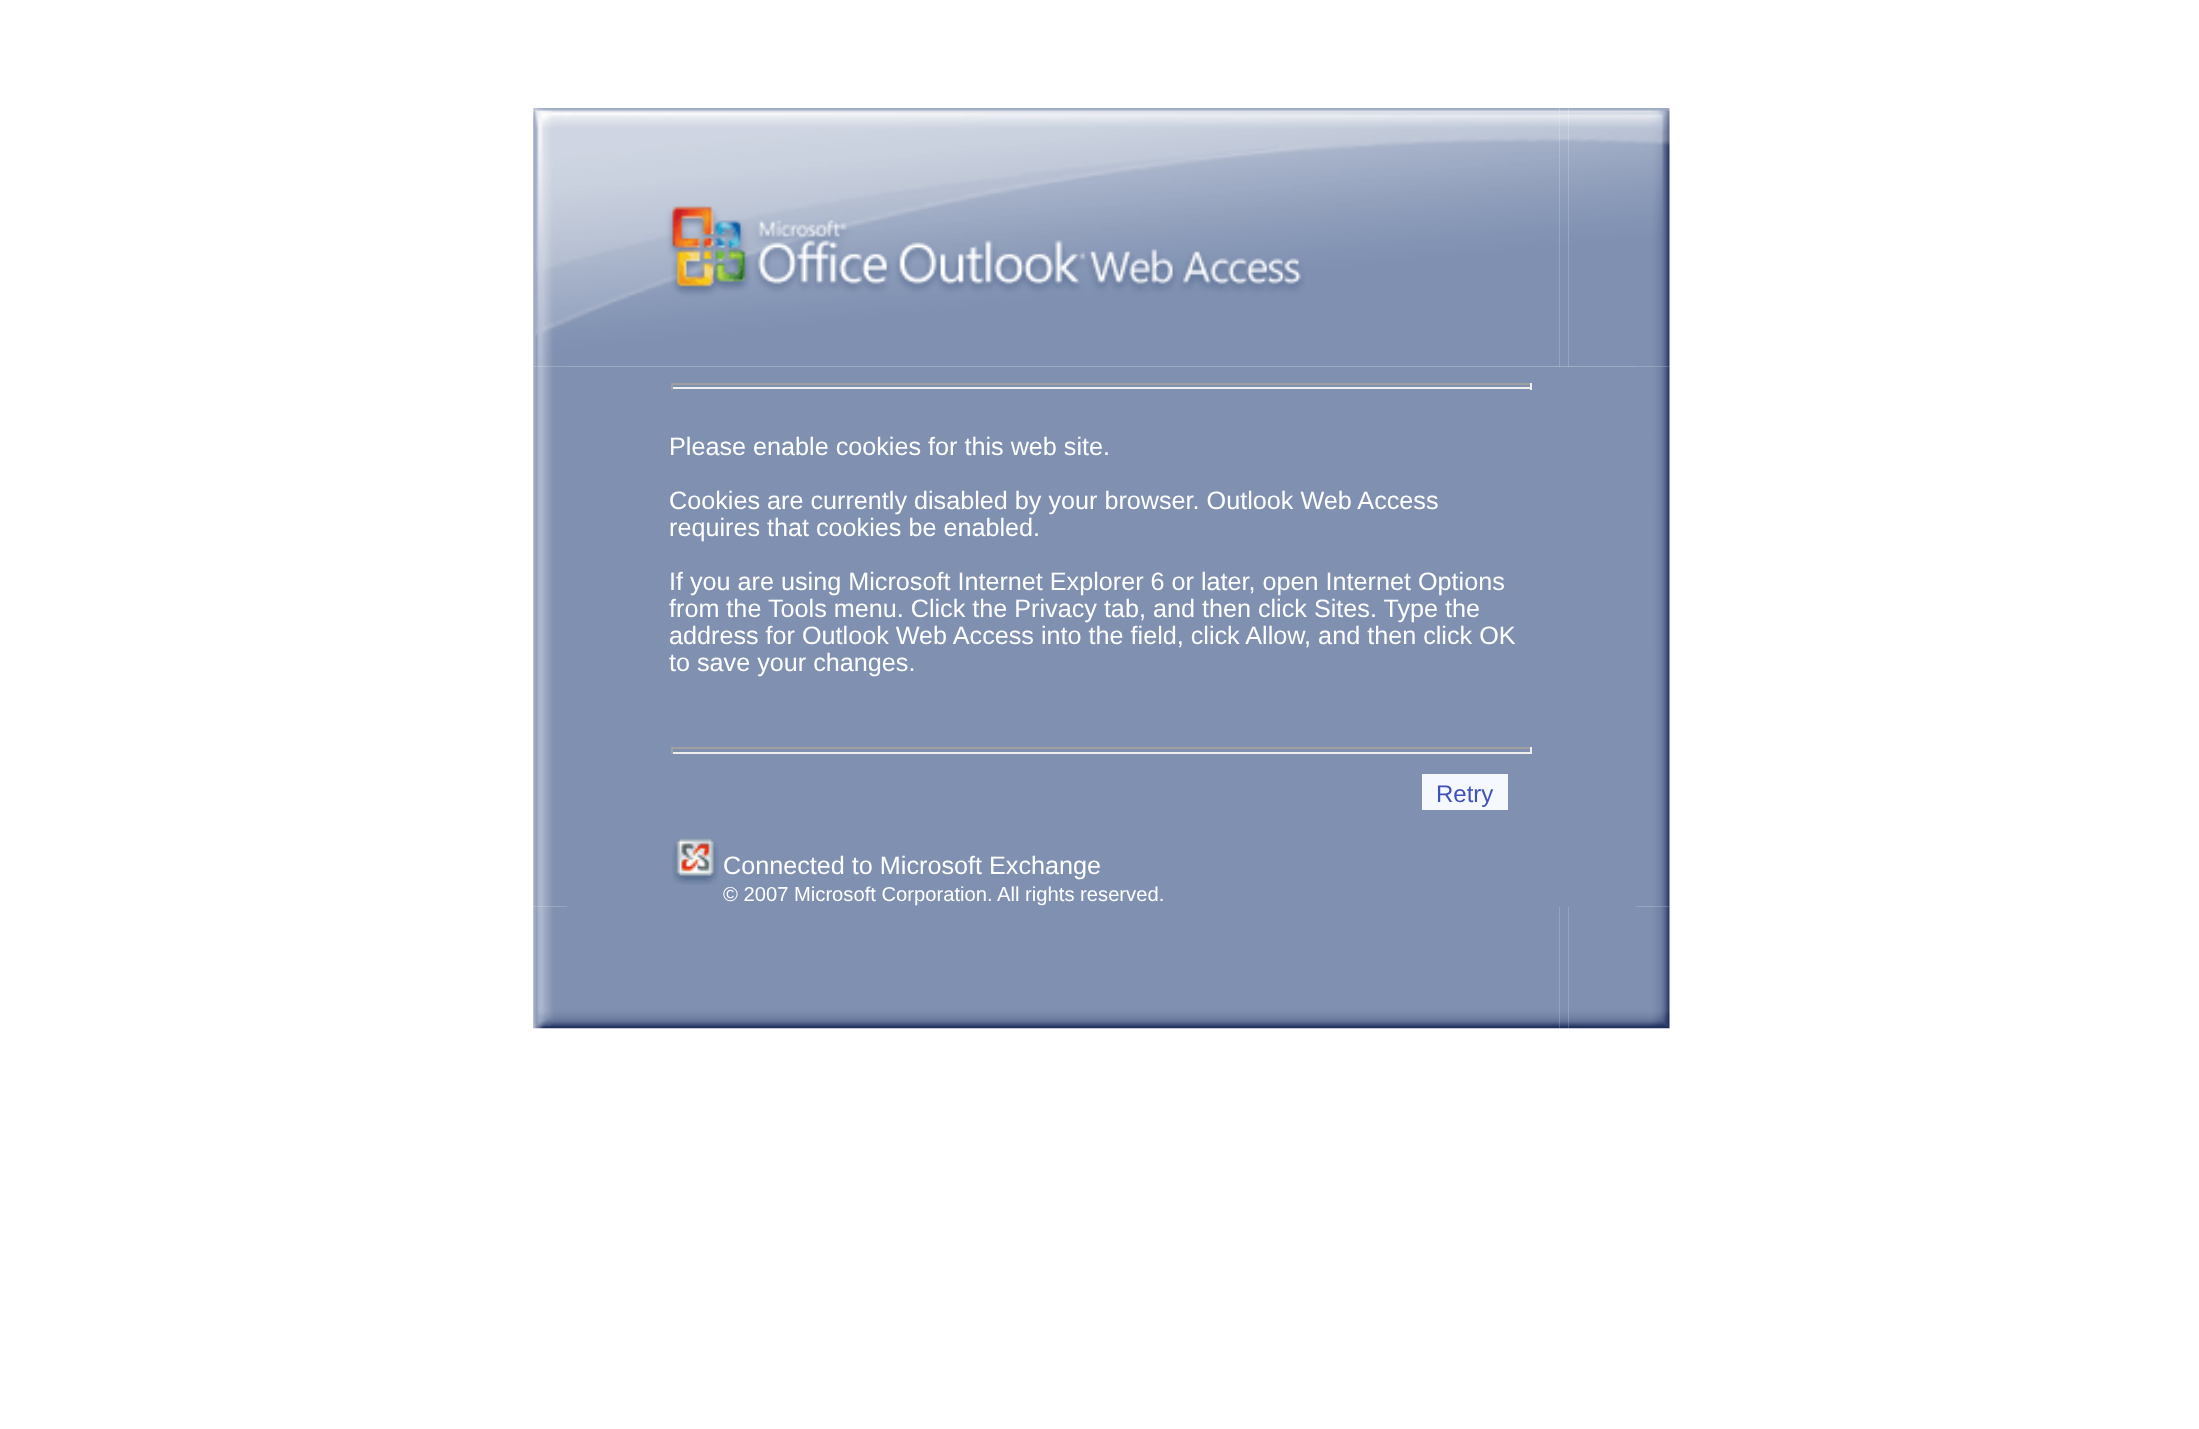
<svg xmlns="http://www.w3.org/2000/svg" width="2199" height="1429" viewBox="0 0 2199 1429">
  <rect width="100%" height="100%" fill="rgb(255,255,255)"/>
  <image x="1559" y="108" width="10" height="259" href="pic2.png"/>
  <image x="533" y="366" width="34" height="541" href="pic4.png"/>
  <image x="533" y="108" width="1027" height="259" href="pic1.png"/>
  <rect x="567" y="367" width="1069" height="540" fill="rgb(127,144,177)"/>
  <image x="1635" y="366" width="35" height="541" href="pic6.png"/>
  <image x="1568" y="108" width="102" height="259" href="pic3.png"/>
  <rect x="671" y="383" width="861" height="2" fill="rgb(159,159,159)"/>
  <rect x="1530" y="383" width="2" height="7" fill="rgb(238,238,238)"/>
  <rect x="671" y="387" width="861" height="2" fill="rgb(238,238,238)"/>
  <rect x="671" y="383" width="2" height="7" fill="rgb(159,159,159)"/>
  <g font-family="Liberation Sans" font-size="25.2" fill="rgb(255,255,255)">
    <text x="669" y="455">Please enable cookies for this web site.</text>
    <text>
      <tspan x="669" y="509">Cookies are currently disabled by your browser. Outlook Web Access</tspan>
      <tspan x="669" y="536">requires that cookies be enabled.</tspan>
    </text>
    <text>
      <tspan x="669" y="590">If you are using Microsoft Internet Explorer 6 or later, open Internet Options</tspan>
      <tspan x="669" y="617">from the Tools menu. Click the Privacy tab, and then click Sites. Type the</tspan>
      <tspan x="669" y="644">address for Outlook Web Access into the field, click Allow, and then click OK</tspan>
      <tspan x="669" y="671">to save your changes.</tspan>
    </text>
  </g>
  <rect x="671" y="747" width="861" height="2" fill="rgb(159,159,159)"/>
  <rect x="1530" y="747" width="2" height="7" fill="rgb(238,238,238)"/>
  <rect x="671" y="752" width="861" height="2" fill="rgb(238,238,238)"/>
  <rect x="671" y="747" width="2" height="7" fill="rgb(159,159,159)"/>
  <rect x="1422" y="774" width="86" height="36" fill="rgb(246,248,255)"/>
  <text x="1436" y="802" font-family="Liberation Sans" font-size="24" fill="rgb(63,82,184)">Retry</text>
  <image x="672" y="838" width="47" height="47" href="pic5.png"/>
  <text x="723" y="874" font-family="Liberation Sans" font-size="25.2" fill="rgb(255,255,255)">Connected to Microsoft Exchange</text>
  <text x="723" y="901" font-family="Liberation Sans" font-size="20.2" fill="rgb(255,255,255)">© 2007 Microsoft Corporation. All rights reserved.</text>
  <image x="1559" y="907" width="10" height="122" href="pic8.png"/>
  <image x="533" y="906" width="1027" height="123" href="pic7.png"/>
  <image x="1568" y="906" width="102" height="123" href="pic9.png"/>
</svg>
